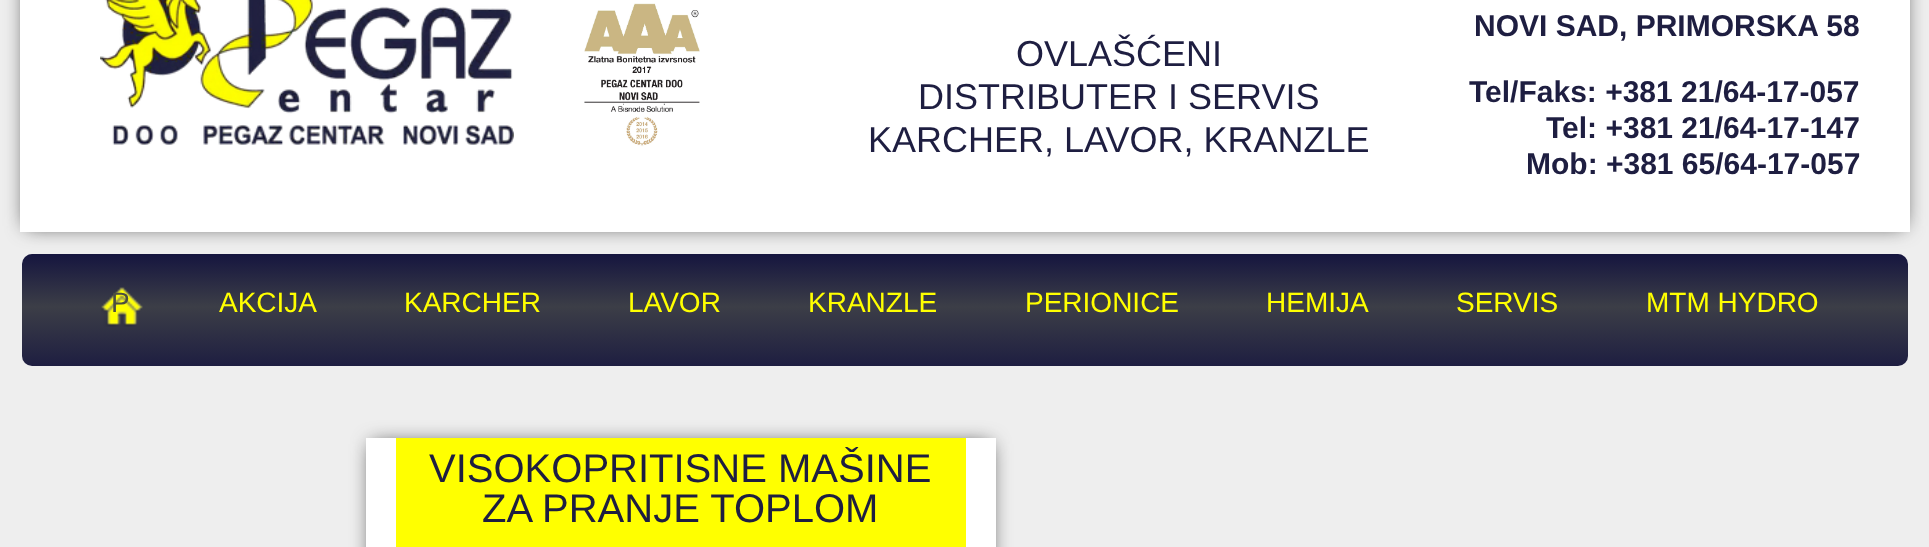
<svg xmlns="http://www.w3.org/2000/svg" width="1929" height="547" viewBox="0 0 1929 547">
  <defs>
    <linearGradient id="g1" gradientUnits="userSpaceOnUse" x1="965" y1="254" x2="965" y2="366"><stop offset="0.01" stop-color="rgb(22,22,63)"/><stop offset="0.47" stop-color="rgb(60,62,71)"/><stop offset="1" stop-color="rgb(30,30,65)"/></linearGradient>
  </defs>
  <rect width="100%" height="100%" fill="rgb(238,238,238)"/>
  <rect x="26" y="-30" width="1878" height="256" fill="rgb(52,52,52)" filter="blur(10px)"/>
  <rect x="20" y="0" width="1890" height="232" fill="rgb(255,255,255)"/>
  <image x="100" y="0" width="414" height="145" href="pic1.png"/>
  <image x="584" y="3" width="116" height="144" href="pic2.png"/>
  <g font-family="Liberation Sans" font-size="36" fill="rgb(30,30,65)">
    <text x="1016" y="66">OVLAŠĆENI</text>
    <text x="918" y="109">DISTRIBUTER I SERVIS</text>
    <text x="868" y="152">KARCHER, LAVOR, KRANZLE</text>
  </g>
  <g font-family="Liberation Sans" font-size="30" font-weight="bold" fill="rgb(30,30,65)">
    <text x="1474" y="36">NOVI SAD, PRIMORSKA 58</text>
    <text x="1469" y="102">Tel/Faks: +381 21/64-17-057</text>
    <text x="1546" y="138">Tel: +381 21/64-17-147</text>
    <text x="1526" y="174">Mob: +381 65/64-17-057</text>
  </g>
  <rect x="22" y="254" width="1886" height="112" rx="10" fill="url(#g1)"/>
  <image x="101" y="287" width="42" height="40" href="pic3.png"/>
  <text x="111" y="312" font-family="Liberation Sans" font-size="28" fill="rgb(75,77,65)">P</text>
  <g font-family="Liberation Sans" font-size="28" fill="rgb(255,255,0)">
    <text x="219" y="312">AKCIJA</text>
    <text x="404" y="312">KARCHER</text>
    <text x="628" y="312">LAVOR</text>
    <text x="808" y="312">KRANZLE</text>
    <text x="1025" y="312">PERIONICE</text>
    <text x="1266" y="312">HEMIJA</text>
    <text x="1456" y="312">SERVIS</text>
    <text x="1646" y="312">MTM HYDRO</text>
  </g>
  <rect x="372" y="444" width="618" height="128" fill="rgb(52,52,52)" filter="blur(10px)"/>
  <rect x="366" y="438" width="630" height="109" fill="rgb(255,255,255)"/>
  <rect x="396" y="438" width="570" height="109" fill="rgb(255,255,0)"/>
  <g font-family="Liberation Sans" font-size="40" fill="rgb(30,30,65)">
    <text x="429" y="482">VISOKOPRITISNE MAŠINE</text>
    <text x="482" y="522">ZA PRANJE TOPLOM</text>
  </g>
</svg>
